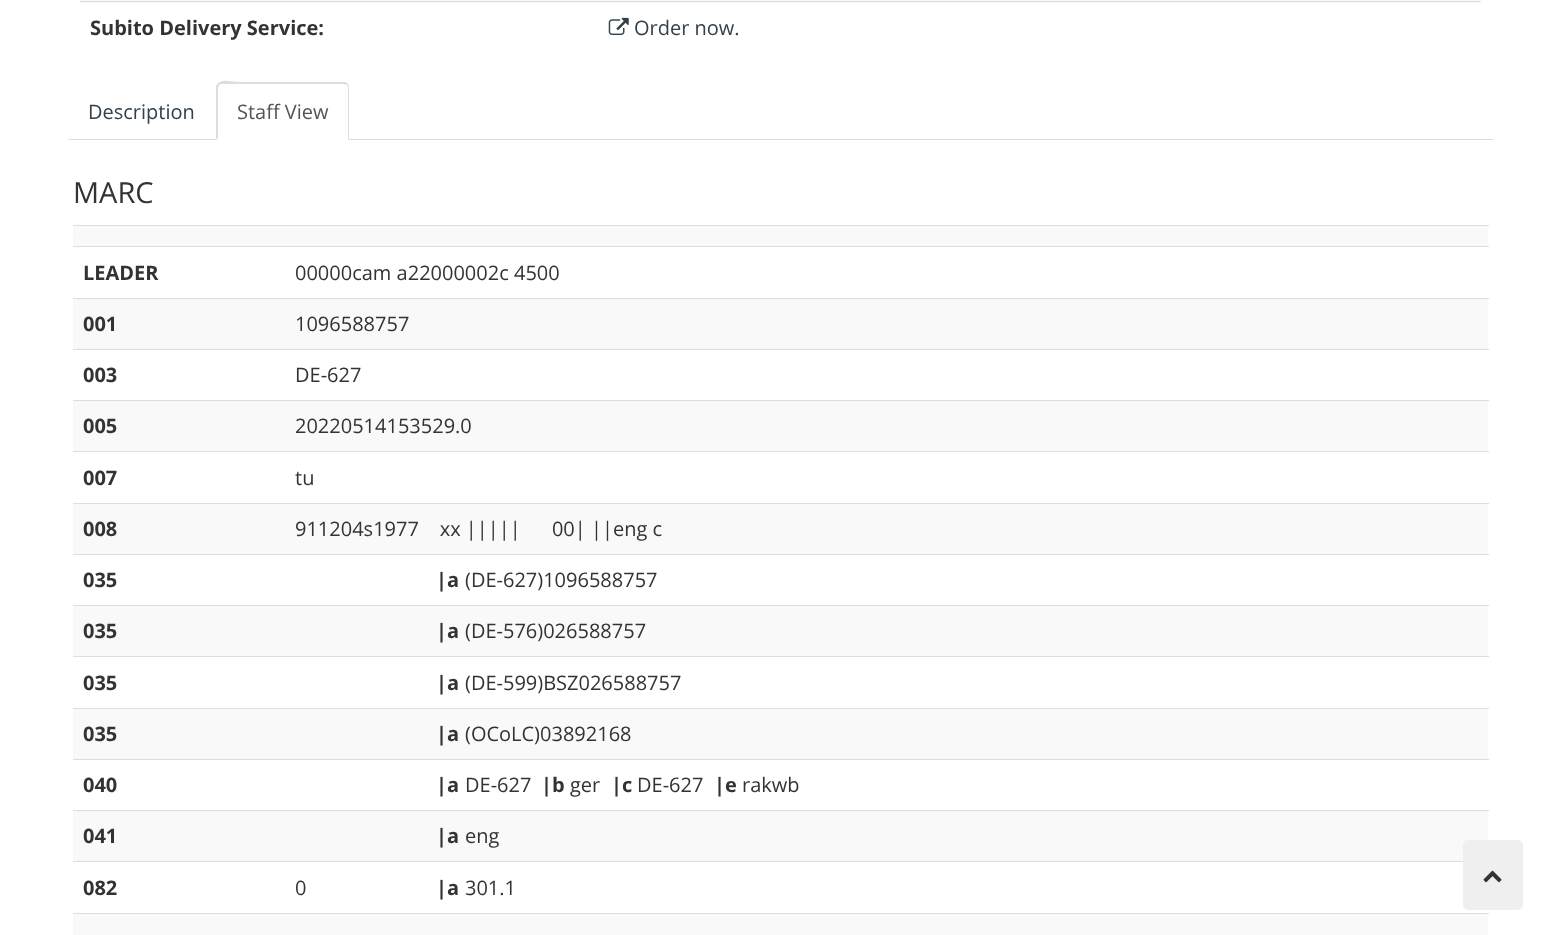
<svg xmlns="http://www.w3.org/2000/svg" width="1559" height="935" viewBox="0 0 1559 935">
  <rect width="100%" height="100%" fill="rgb(255,255,255)"/>
  <rect x="80" y="0" width="1400" height="3" fill="rgb(249,249,249)"/>
  <text x="90" y="35" font-family="Open Sans" font-size="20" font-weight="bold" fill="rgb(51,51,51)">Subito Delivery Service:</text>
  <rect x="80" y="1" width="1401" height="1" fill="rgb(221,221,221)"/>
  <image x="608" y="17" width="21" height="18" href="pic1.png"/>
  <text x="634" y="35" font-family="Open Sans" font-size="20" fill="rgb(50,65,75)">Order now.</text>
  <rect x="68" y="139" width="1425" height="1" fill="rgb(221,221,221)"/>
  <text x="88" y="119" font-family="Open Sans" font-size="20" fill="rgb(50,65,75)">Description</text>
  <path d="M221 83H344C347 83 349 85 349 88V140H216V88C216 85 218 83 221 83Z" fill="rgb(255,255,255)"/>
  <path d="M221 84L219 85L217 84C222 78 232 82 240 82H346L348 84L347 85L344 84Z" fill="rgb(221,221,221)"/>
  <path d="M349 86V140L348 139V87L347 85L348 84Z" fill="rgb(221,221,221)"/>
  <path d="M216 140V86L217 84L219 85L218 88V138Z" fill="rgb(221,221,221)"/>
  <text x="237" y="119" font-family="Open Sans" font-size="20" fill="rgb(85,85,85)">Staff View</text>
  <text x="73" y="203" font-family="Open Sans" font-size="29" fill="rgb(51,51,51)">MARC</text>
  <rect x="73" y="226" width="1415" height="20" fill="rgb(249,249,249)"/>
  <rect x="73" y="225" width="1416" height="1" fill="rgb(221,221,221)"/>
  <text x="83" y="280" font-family="Open Sans" font-size="20" font-weight="bold" fill="rgb(51,51,51)">LEADER</text>
  <rect x="73" y="246" width="1416" height="1" fill="rgb(221,221,221)"/>
  <text x="295" y="280" font-family="Open Sans" font-size="20" fill="rgb(51,51,51)">00000cam a22000002c 4500</text>
  <rect x="73" y="299" width="1415" height="50" fill="rgb(249,249,249)"/>
  <text x="83" y="331" font-family="Open Sans" font-size="20" font-weight="bold" fill="rgb(51,51,51)">001</text>
  <rect x="73" y="298" width="1416" height="1" fill="rgb(221,221,221)"/>
  <text x="295" y="331" font-family="Open Sans" font-size="20" fill="rgb(51,51,51)">1096588757</text>
  <text x="83" y="382" font-family="Open Sans" font-size="20" font-weight="bold" fill="rgb(51,51,51)">003</text>
  <rect x="73" y="349" width="1416" height="1" fill="rgb(221,221,221)"/>
  <text x="295" y="382" font-family="Open Sans" font-size="20" fill="rgb(51,51,51)">DE-627</text>
  <rect x="73" y="401" width="1415" height="50" fill="rgb(249,249,249)"/>
  <text x="83" y="433" font-family="Open Sans" font-size="20" font-weight="bold" fill="rgb(51,51,51)">005</text>
  <rect x="73" y="400" width="1416" height="1" fill="rgb(221,221,221)"/>
  <text x="295" y="433" font-family="Open Sans" font-size="20" fill="rgb(51,51,51)">20220514153529.0</text>
  <text x="83" y="485" font-family="Open Sans" font-size="20" font-weight="bold" fill="rgb(51,51,51)">007</text>
  <rect x="73" y="451" width="1416" height="1" fill="rgb(221,221,221)"/>
  <text x="295" y="485" font-family="Open Sans" font-size="20" fill="rgb(51,51,51)">tu</text>
  <rect x="73" y="504" width="1415" height="50" fill="rgb(249,249,249)"/>
  <text x="83" y="536" font-family="Open Sans" font-size="20" font-weight="bold" fill="rgb(51,51,51)">008</text>
  <rect x="73" y="503" width="1416" height="1" fill="rgb(221,221,221)"/>
  <text x="295" y="536" font-family="Open Sans" font-size="20" fill="rgb(51,51,51)" xml:space="preserve">911204s1977    xx |||||      00| ||eng c</text>
  <text x="83" y="587" font-family="Open Sans" font-size="20" font-weight="bold" fill="rgb(51,51,51)">035</text>
  <rect x="73" y="554" width="1416" height="1" fill="rgb(221,221,221)"/>
  <text x="436" y="587" font-family="Open Sans" font-size="20" font-weight="bold" fill="rgb(51,51,51)">|a</text>
  <text x="465" y="587" font-family="Open Sans" font-size="20" fill="rgb(51,51,51)">(DE-627)1096588757</text>
  <rect x="73" y="606" width="1415" height="50" fill="rgb(249,249,249)"/>
  <text x="83" y="638" font-family="Open Sans" font-size="20" font-weight="bold" fill="rgb(51,51,51)">035</text>
  <rect x="73" y="605" width="1416" height="1" fill="rgb(221,221,221)"/>
  <text x="436" y="638" font-family="Open Sans" font-size="20" font-weight="bold" fill="rgb(51,51,51)">|a</text>
  <text x="465" y="638" font-family="Open Sans" font-size="20" fill="rgb(51,51,51)">(DE-576)026588757</text>
  <text x="83" y="690" font-family="Open Sans" font-size="20" font-weight="bold" fill="rgb(51,51,51)">035</text>
  <rect x="73" y="656" width="1416" height="1" fill="rgb(221,221,221)"/>
  <text x="436" y="690" font-family="Open Sans" font-size="20" font-weight="bold" fill="rgb(51,51,51)">|a</text>
  <text x="465" y="690" font-family="Open Sans" font-size="20" fill="rgb(51,51,51)">(DE-599)BSZ026588757</text>
  <rect x="73" y="709" width="1415" height="50" fill="rgb(249,249,249)"/>
  <text x="83" y="741" font-family="Open Sans" font-size="20" font-weight="bold" fill="rgb(51,51,51)">035</text>
  <rect x="73" y="708" width="1416" height="1" fill="rgb(221,221,221)"/>
  <text x="436" y="741" font-family="Open Sans" font-size="20" font-weight="bold" fill="rgb(51,51,51)">|a</text>
  <text x="465" y="741" font-family="Open Sans" font-size="20" fill="rgb(51,51,51)">(OCoLC)03892168</text>
  <text x="83" y="792" font-family="Open Sans" font-size="20" font-weight="bold" fill="rgb(51,51,51)">040</text>
  <rect x="73" y="759" width="1416" height="1" fill="rgb(221,221,221)"/>
  <text x="436" y="792" font-family="Open Sans" font-size="20" font-weight="bold" fill="rgb(51,51,51)">|a</text>
  <text x="465" y="792" font-family="Open Sans" font-size="20" fill="rgb(51,51,51)">DE-627</text>
  <text x="541" y="792" font-family="Open Sans" font-size="20" font-weight="bold" fill="rgb(51,51,51)">|b</text>
  <text x="570" y="792" font-family="Open Sans" font-size="20" fill="rgb(51,51,51)">ger</text>
  <text x="611" y="792" font-family="Open Sans" font-size="20" font-weight="bold" fill="rgb(51,51,51)">|c</text>
  <text x="637" y="792" font-family="Open Sans" font-size="20" fill="rgb(51,51,51)">DE-627</text>
  <text x="714" y="792" font-family="Open Sans" font-size="20" font-weight="bold" fill="rgb(51,51,51)">|e</text>
  <text x="742" y="792" font-family="Open Sans" font-size="20" fill="rgb(51,51,51)">rakwb</text>
  <rect x="73" y="811" width="1415" height="50" fill="rgb(249,249,249)"/>
  <text x="83" y="843" font-family="Open Sans" font-size="20" font-weight="bold" fill="rgb(51,51,51)">041</text>
  <rect x="73" y="810" width="1416" height="1" fill="rgb(221,221,221)"/>
  <text x="436" y="843" font-family="Open Sans" font-size="20" font-weight="bold" fill="rgb(51,51,51)">|a</text>
  <text x="465" y="843" font-family="Open Sans" font-size="20" fill="rgb(51,51,51)">eng</text>
  <text x="83" y="895" font-family="Open Sans" font-size="20" font-weight="bold" fill="rgb(51,51,51)">082</text>
  <text x="295" y="895" font-family="Open Sans" font-size="20" fill="rgb(51,51,51)">0</text>
  <rect x="73" y="861" width="1390" height="1" fill="rgb(221,221,221)"/>
  <text x="436" y="895" font-family="Open Sans" font-size="20" font-weight="bold" fill="rgb(51,51,51)">|a</text>
  <text x="465" y="895" font-family="Open Sans" font-size="20" fill="rgb(51,51,51)">301.1</text>
  <rect x="73" y="914" width="1415" height="21" fill="rgb(249,249,249)"/>
  <rect x="73" y="913" width="1416" height="1" fill="rgb(221,221,221)"/>
  <rect x="1463" y="840" width="60" height="70" rx="5" fill="rgb(239,239,239)"/>
  <image x="1483" y="870" width="19" height="13" href="pic2.png"/>
</svg>
